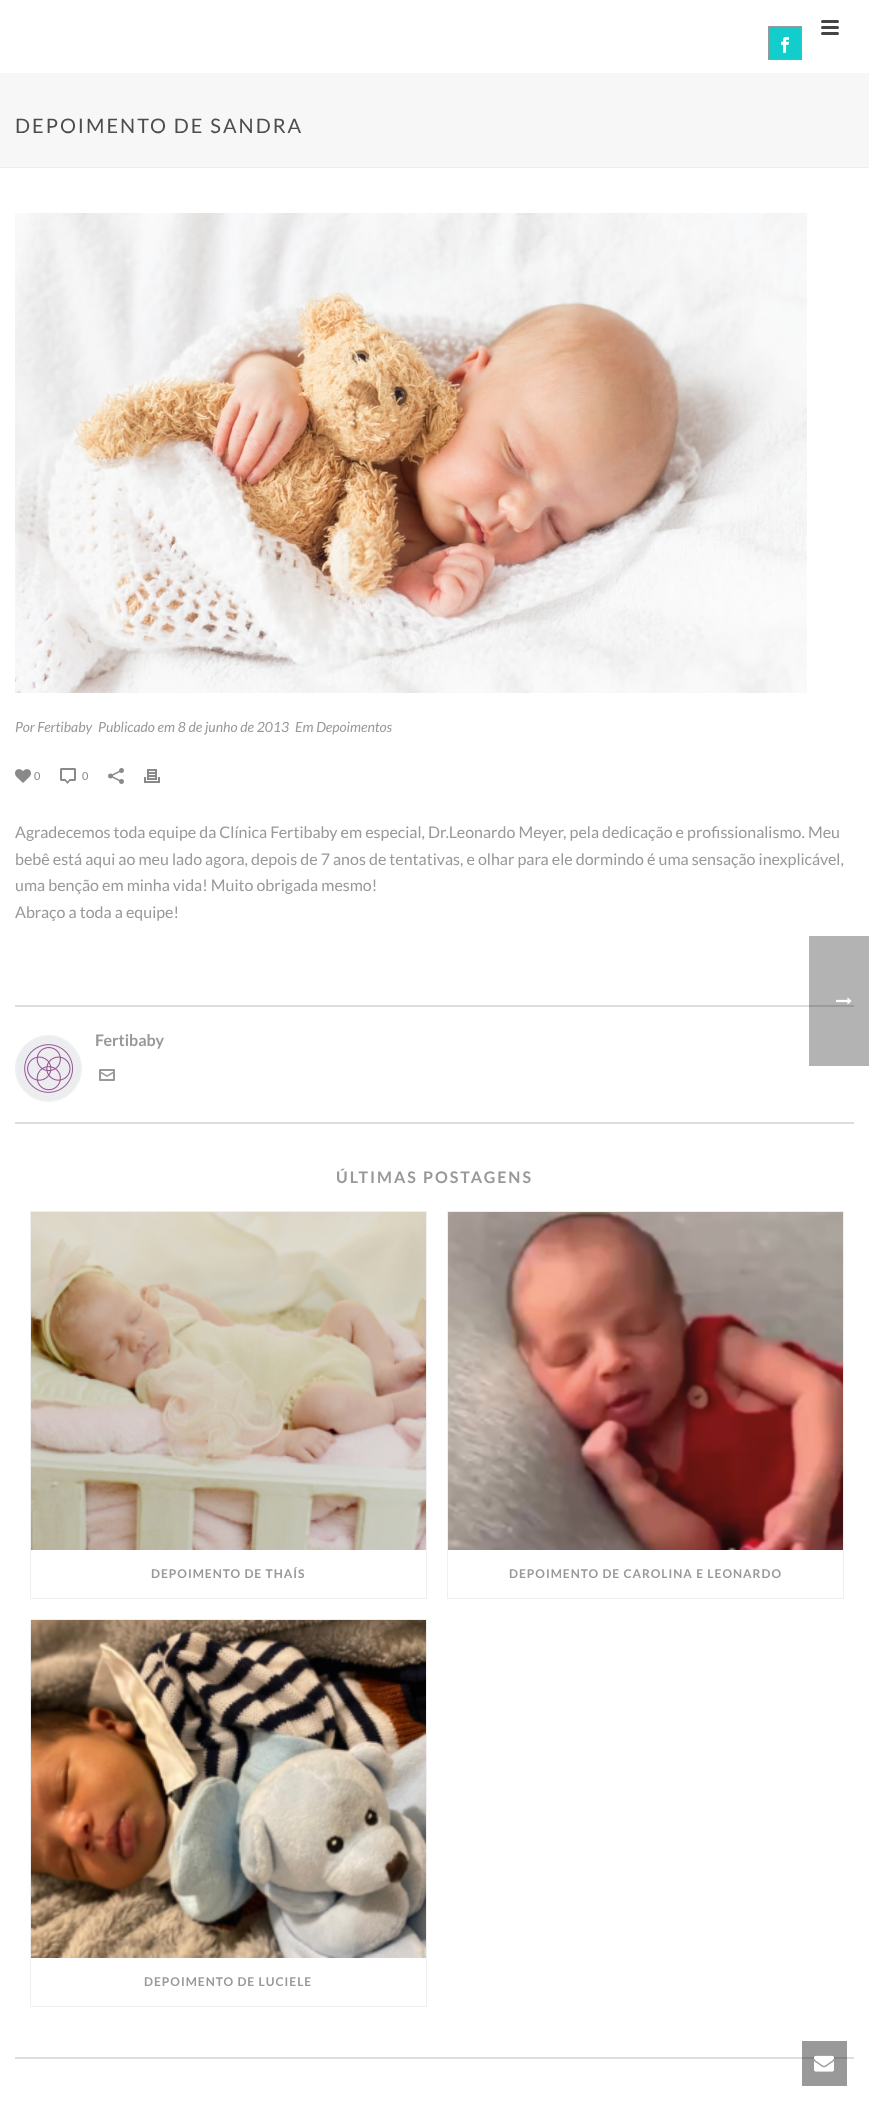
<svg xmlns="http://www.w3.org/2000/svg" width="869" height="2101" viewBox="0 0 869 2101">
  <rect width="100%" height="100%" fill="rgb(255,255,255)"/>
  <rect x="802" y="2041" width="45" height="45" fill="rgb(153,153,153)"/>
  <rect x="809" y="936" width="60" height="130" fill="rgb(179,179,179)"/>
  <rect x="0" y="73" width="869" height="94" fill="rgb(247,247,247)"/>
  <rect x="0" y="167" width="869" height="1" fill="rgb(237,237,237)"/>
  <rect x="768.5" y="26.5" width="33" height="33" fill="rgb(18,205,204)" stroke="rgb(153,153,153)"/>
  <image x="781" y="37" width="8" height="16" href="pic1.png"/>
  <rect x="821" y="20" width="18" height="3" rx="1.5" fill="rgb(68,68,68)"/>
  <rect x="821" y="26" width="18" height="3" rx="1.5" fill="rgb(68,68,68)"/>
  <rect x="821" y="32" width="18" height="3" rx="1.5" fill="rgb(68,68,68)"/>
  <text x="15" y="133" font-family="Lato" font-size="20" letter-spacing="2" fill="rgb(77,77,77)">DEPOIMENTO DE SANDRA</text>
  <image x="15" y="213" width="792" height="480" href="pic2.png"/>
  <g font-family="Lato" font-size="14" font-style="italic" fill="rgb(153,153,153)">
    <text x="15" y="732">Por Fertibaby</text>
    <text x="98" y="732">Publicado em 8 de junho de 2013</text>
    <text x="295" y="732">Em Depoimentos</text>
  </g>
  <image x="15" y="769" width="16" height="14" href="pic3.png"/>
  <text x="34" y="780" font-family="Lato" font-size="11" fill="rgb(137,137,137)">0</text>
  <image x="60" y="768" width="16" height="16" href="pic4.png"/>
  <text x="82" y="780" font-family="Lato" font-size="11" fill="rgb(137,137,137)">0</text>
  <image x="108" y="768" width="16" height="16" href="pic5.png"/>
  <image x="144" y="769" width="16" height="14" href="pic6.png"/>
  <g font-family="Lato" font-size="16" fill="rgb(153,153,153)">
    <text>
      <tspan x="15" y="838">Agradecemos toda equipe da Clínica Fertibaby em especial, Dr.Leonardo Meyer, pela dedicação e profissionalismo. Meu</tspan>
      <tspan x="15" y="865">bebê está aqui ao meu lado agora, depois de 7 anos de tentativas, e olhar para ele dormindo é uma sensação inexplicável,</tspan>
      <tspan x="15" y="891">uma benção em minha vida! Muito obrigada mesmo!</tspan>
      <tspan x="15" y="918">Abraço a toda a equipe!</tspan>
    </text>
  </g>
  <rect x="15" y="1005" width="794" height="2" fill="rgb(221,221,221)"/>
  <rect x="809" y="1005" width="45" height="2" fill="rgb(155,155,155)"/>
  <rect x="15" y="1122" width="839" height="2" fill="rgb(221,221,221)"/>
  <circle cx="48.5" cy="1068.5" r="33" fill="none" stroke="rgb(238,238,238)"/>
  <image x="16" y="1036" width="65" height="65" href="pic7.png"/>
  <text x="95" y="1046" font-family="Lato" font-size="16" font-weight="bold" fill="rgb(153,153,153)">Fertibaby</text>
  <image x="99" y="1069" width="16" height="12" href="pic8.png"/>
  <rect x="15" y="2057" width="839" height="2" fill="rgb(221,221,221)"/>
  <rect x="802" y="2057" width="45" height="2" fill="rgb(133,133,133)"/>
  <text x="336" y="1183" font-family="Lato" font-size="16" font-weight="bold" letter-spacing="2" fill="rgb(153,153,153)">ÚLTIMAS POSTAGENS</text>
  <rect x="30.5" y="1211.5" width="396" height="387" fill="none" stroke="rgb(239,239,239)"/>
  <image x="31" y="1212" width="395" height="338" href="pic9.png"/>
  <text x="151" y="1578" font-family="Lato" font-size="12" font-weight="bold" letter-spacing="1" fill="rgb(153,153,153)">DEPOIMENTO DE THAÍS</text>
  <rect x="447.5" y="1211.5" width="396" height="387" fill="none" stroke="rgb(239,239,239)"/>
  <image x="448" y="1212" width="395" height="338" href="pic10.png"/>
  <text x="509" y="1578" font-family="Lato" font-size="12" font-weight="bold" letter-spacing="1" fill="rgb(153,153,153)">DEPOIMENTO DE CAROLINA E LEONARDO</text>
  <rect x="30.5" y="1619.5" width="396" height="387" fill="none" stroke="rgb(239,239,239)"/>
  <image x="31" y="1620" width="395" height="338" href="pic11.png"/>
  <text x="144" y="1986" font-family="Lato" font-size="12" font-weight="bold" letter-spacing="1" fill="rgb(153,153,153)">DEPOIMENTO DE LUCIELE</text>
  <image x="836" y="997" width="16" height="8" href="pic12.png"/>
  <image x="814" y="2055" width="20" height="17" href="pic13.png"/>
</svg>
